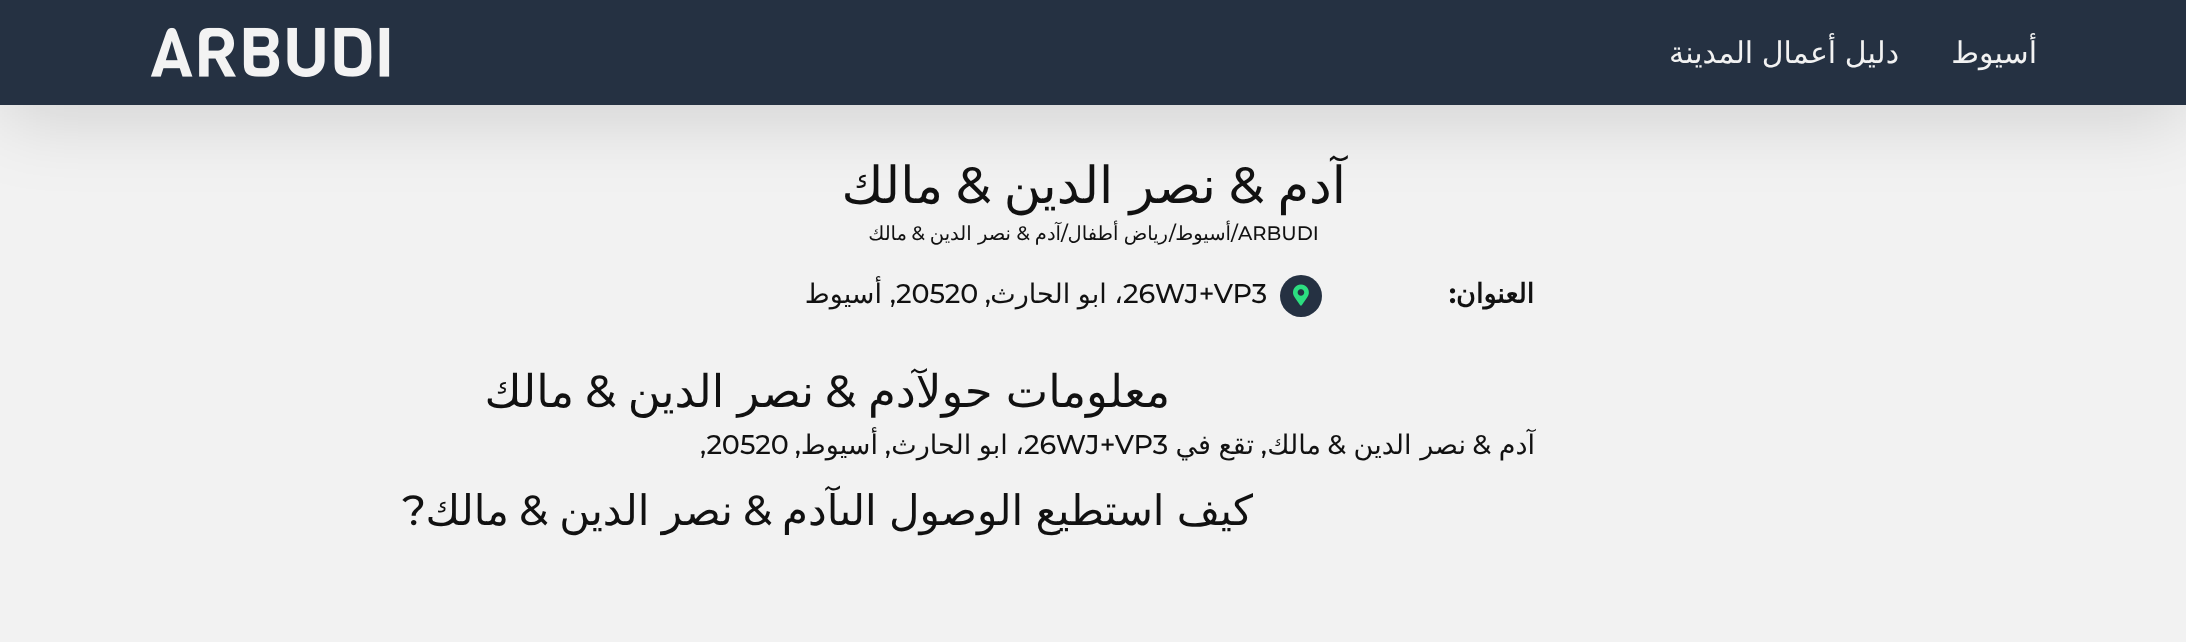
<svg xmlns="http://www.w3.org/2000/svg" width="2186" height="642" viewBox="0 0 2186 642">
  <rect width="100%" height="100%" fill="rgb(242,242,242)"/>
  <rect x="3" y="18" width="2181" height="99" fill="rgba(0,0,0,0.14)" filter="blur(37.5px)"/>
  <rect x="0" y="0" width="2186" height="105" fill="rgb(37,49,66)"/>
  <g font-family="DejaVu Sans" font-size="30" direction="rtl" fill="rgb(242,242,242)">
    <text x="2037" y="63">أسيوط</text>
    <text x="1899" y="63" word-spacing="-1">دليل أعمال المدينة</text>
  </g>
  <image x="150" y="27" width="240" height="50" href="pic1.png"/>
  <text x="1346" y="203" font-family="DejaVu Sans" font-size="51" direction="rtl" fill="rgb(17,17,17)">آدم</text>
  <text x="1264" y="203" font-family="Montserrat" font-size="51" font-weight="500" direction="rtl" fill="rgb(17,17,17)">&amp;</text>
  <text x="1216" y="203" font-family="DejaVu Sans" font-size="51" direction="rtl" fill="rgb(17,17,17)">نصر الدين</text>
  <text x="991" y="203" font-family="Montserrat" font-size="51" font-weight="500" direction="rtl" fill="rgb(17,17,17)">&amp;</text>
  <text x="943" y="203" font-family="DejaVu Sans" font-size="51" direction="rtl" fill="rgb(17,17,17)">مالك</text>
  <g font-family="Montserrat" font-size="19.5" font-weight="500" fill="rgb(17,17,17)">
    <text x="1238" y="240">ARBUDI</text>
    <text x="1231" y="240">/</text>
  </g>
  <text x="1231" y="240" font-family="DejaVu Sans" font-size="19.5" direction="rtl" fill="rgb(17,17,17)">أسيوط</text>
  <text x="1169" y="240" font-family="Montserrat" font-size="19.5" font-weight="500" fill="rgb(17,17,17)">/</text>
  <text x="1168" y="240" word-spacing="-1" font-family="DejaVu Sans" font-size="19.5" direction="rtl" fill="rgb(17,17,17)">رياض أطفال</text>
  <text x="1061" y="240" font-family="Montserrat" font-size="19.5" font-weight="500" fill="rgb(17,17,17)">/</text>
  <text x="1061" y="240" font-family="DejaVu Sans" font-size="19.5" direction="rtl" fill="rgb(17,17,17)">آدم</text>
  <text x="1030" y="240" font-family="Montserrat" font-size="19.5" font-weight="500" direction="rtl" fill="rgb(17,17,17)">&amp;</text>
  <text x="1011" y="240" font-family="DejaVu Sans" font-size="19.5" direction="rtl" fill="rgb(17,17,17)">نصر الدين</text>
  <text x="925" y="240" font-family="Montserrat" font-size="19.5" font-weight="500" direction="rtl" fill="rgb(17,17,17)">&amp;</text>
  <text x="907" y="240" font-family="DejaVu Sans" font-size="19.5" direction="rtl" fill="rgb(17,17,17)">مالك</text>
  <text x="1534" y="303" font-family="DejaVu Sans" font-size="27" font-weight="bold" direction="rtl" fill="rgb(17,17,17)">العنوان</text>
  <text x="1456" y="303" font-family="Montserrat" font-size="27" font-weight="bold" direction="rtl" fill="rgb(17,17,17)">:</text>
  <circle cx="1301" cy="296" r="21" fill="rgb(37,49,66)"/>
  <image x="1293" y="284" width="16" height="22" href="pic2.png"/>
  <text x="1123" y="303" word-spacing="-1" font-family="DejaVu Sans" font-size="27" direction="rtl" fill="rgb(17,17,17)">، ابو الحارث</text>
  <text x="1123" y="303" font-family="Montserrat" font-size="27" font-weight="500" fill="rgb(17,17,17)">26WJ+VP3</text>
  <text x="991" y="303" font-family="Montserrat" font-size="27" font-weight="500" direction="rtl" fill="rgb(17,17,17)">,</text>
  <text x="896" y="303" font-family="Montserrat" font-size="27" font-weight="500" fill="rgb(17,17,17)">20520</text>
  <text x="896" y="303" font-family="Montserrat" font-size="27" font-weight="500" direction="rtl" fill="rgb(17,17,17)">,</text>
  <text x="882" y="303" font-family="DejaVu Sans" font-size="27" direction="rtl" fill="rgb(17,17,17)">أسيوط</text>
  <text x="1170" y="407" word-spacing="-1" font-family="DejaVu Sans" font-size="45" direction="rtl" fill="rgb(17,17,17)">معلومات حولآدم</text>
  <text x="856" y="407" font-family="Montserrat" font-size="45" font-weight="500" direction="rtl" fill="rgb(17,17,17)">&amp;</text>
  <text x="814" y="407" word-spacing="-1" font-family="DejaVu Sans" font-size="45" direction="rtl" fill="rgb(17,17,17)">نصر الدين</text>
  <text x="616" y="407" font-family="Montserrat" font-size="45" font-weight="500" direction="rtl" fill="rgb(17,17,17)">&amp;</text>
  <text x="574" y="407" font-family="DejaVu Sans" font-size="45" direction="rtl" fill="rgb(17,17,17)">مالك</text>
  <text x="1535" y="454" font-family="DejaVu Sans" font-size="27" direction="rtl" fill="rgb(17,17,17)">آدم</text>
  <text x="1491" y="454" font-family="Montserrat" font-size="27" font-weight="500" direction="rtl" fill="rgb(17,17,17)">&amp;</text>
  <text x="1466" y="454" font-family="DejaVu Sans" font-size="27" direction="rtl" fill="rgb(17,17,17)">نصر الدين</text>
  <text x="1346" y="454" font-family="Montserrat" font-size="27" font-weight="500" direction="rtl" fill="rgb(17,17,17)">&amp;</text>
  <text x="1321" y="454" font-family="DejaVu Sans" font-size="27" direction="rtl" fill="rgb(17,17,17)">مالك</text>
  <text x="1267" y="454" font-family="Montserrat" font-size="27" font-weight="500" direction="rtl" fill="rgb(17,17,17)">,</text>
  <text x="1254" y="454" word-spacing="-1" font-family="DejaVu Sans" font-size="27" direction="rtl" fill="rgb(17,17,17)">تقع في</text>
  <text x="1024" y="454" font-family="Montserrat" font-size="27" font-weight="500" fill="rgb(17,17,17)">26WJ+VP3</text>
  <text x="1024" y="454" word-spacing="-1" font-family="DejaVu Sans" font-size="27" direction="rtl" fill="rgb(17,17,17)">، ابو الحارث</text>
  <text x="891" y="454" font-family="Montserrat" font-size="27" font-weight="500" direction="rtl" fill="rgb(17,17,17)">,</text>
  <text x="878" y="454" font-family="DejaVu Sans" font-size="27" direction="rtl" fill="rgb(17,17,17)">أسيوط</text>
  <text x="801" y="454" font-family="Montserrat" font-size="27" font-weight="500" direction="rtl" fill="rgb(17,17,17)">,</text>
  <text x="700" y="454" font-family="Montserrat" font-size="27" font-weight="500" fill="rgb(17,17,17)">,20520</text>
  <text x="1253" y="525" word-spacing="-1" font-family="DejaVu Sans" font-size="42" direction="rtl" fill="rgb(17,17,17)">كيف استطيع الوصول الىآدم</text>
  <text x="772" y="525" font-family="Montserrat" font-size="42" font-weight="500" direction="rtl" fill="rgb(17,17,17)">&amp;</text>
  <text x="733" y="525" word-spacing="-1" font-family="DejaVu Sans" font-size="42" direction="rtl" fill="rgb(17,17,17)">نصر الدين</text>
  <text x="548" y="525" font-family="Montserrat" font-size="42" font-weight="500" direction="rtl" fill="rgb(17,17,17)">&amp;</text>
  <text x="509" y="525" font-family="DejaVu Sans" font-size="42" direction="rtl" fill="rgb(17,17,17)">مالك</text>
  <text x="426" y="525" font-family="Montserrat" font-size="42" font-weight="500" direction="rtl" fill="rgb(17,17,17)">?</text>
</svg>
